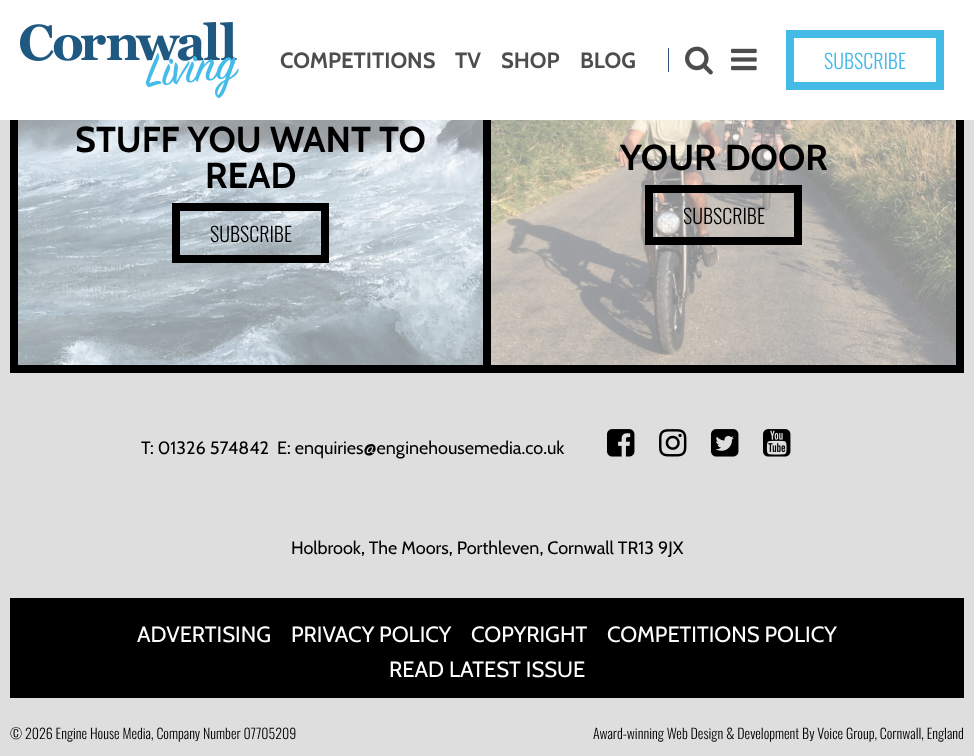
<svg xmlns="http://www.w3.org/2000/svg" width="974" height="756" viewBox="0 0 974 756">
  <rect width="100%" height="100%" fill="rgb(222,222,223)"/>
  <rect x="12" y="-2" width="950" height="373" fill="none" stroke="rgb(0,0,0)" stroke-width="4"/>
  <image x="18" y="120" width="465" height="245" href="pic4.png"/>
  <rect x="16" y="-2" width="469" height="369" fill="none" stroke="rgb(0,0,0)" stroke-width="4"/>
  <image x="491" y="120" width="465" height="245" href="pic5.png"/>
  <rect x="489" y="-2" width="469" height="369" fill="none" stroke="rgb(0,0,0)" stroke-width="4"/>
  <rect x="0" y="0" width="974" height="120" fill="rgb(254,254,254)"/>
  <image x="20" y="22" width="219" height="76" href="pic1.png"/>
  <g font-family="Cabin" font-size="22" font-weight="bold" fill="rgb(77,77,77)">
    <text x="280" y="68">COMPETITIONS</text>
    <text x="455" y="68">TV</text>
    <text x="501" y="68">SHOP</text>
    <text x="580" y="68">BLOG</text>
  </g>
  <rect x="668" y="48" width="1" height="24" fill="rgb(47,85,126)"/>
  <image x="685" y="46" width="28" height="29" href="pic2.png"/>
  <image x="731" y="48" width="26" height="23" href="pic3.png"/>
  <rect x="790" y="34" width="150" height="52" fill="none" stroke="rgb(68,186,231)" stroke-width="8"/>
  <text x="824" y="69" font-family="Oswald" font-size="20" font-weight="300" fill="rgb(68,186,231)">SUBSCRIBE</text>
  <g font-family="Cabin" font-size="36" font-weight="bold" fill="rgb(0,0,0)">
    <text x="75" y="152">STUFF YOU WANT TO</text>
    <text x="205" y="188">READ</text>
  </g>
  <rect x="176" y="207" width="149" height="52" fill="none" stroke="rgb(0,0,0)" stroke-width="8"/>
  <text x="210" y="242" font-family="Oswald" font-size="20" font-weight="300" fill="rgb(0,0,0)">SUBSCRIBE</text>
  <text x="620" y="170" font-family="Cabin" font-size="36" font-weight="bold" fill="rgb(0,0,0)">YOUR DOOR</text>
  <rect x="649" y="189" width="149" height="52" fill="none" stroke="rgb(0,0,0)" stroke-width="8"/>
  <text x="683" y="224" font-family="Oswald" font-size="20" font-weight="300" fill="rgb(0,0,0)">SUBSCRIBE</text>
  <g font-family="Cabin" font-size="18" fill="rgb(0,0,0)">
    <text x="141" y="454">T: 01326 574842</text>
    <text x="277" y="454">E: enquiries@enginehousemedia.co.uk</text>
  </g>
  <image x="607" y="429" width="28" height="28" href="pic6.png"/>
  <image x="659" y="429" width="28" height="28" href="pic7.png"/>
  <image x="711" y="429" width="28" height="28" href="pic8.png"/>
  <image x="763" y="429" width="28" height="28" href="pic9.png"/>
  <text x="291" y="554" font-family="Cabin" font-size="18" fill="rgb(0,0,0)">Holbrook, The Moors, Porthleven, Cornwall TR13 9JX</text>
  <rect x="10" y="598" width="954" height="100" fill="rgb(0,0,0)"/>
  <g font-family="Cabin" font-size="22" fill="rgb(254,254,254)">
    <text x="137" y="642">ADVERTISING</text>
    <text x="291" y="642">PRIVACY POLICY</text>
    <text x="471" y="642">COPYRIGHT</text>
    <text x="607" y="642">COMPETITIONS POLICY</text>
    <text x="389" y="677">READ LATEST ISSUE</text>
  </g>
  <g font-family="Oswald" font-size="14" font-weight="300" fill="rgb(0,0,0)">
    <text x="10" y="739">© 2026 Engine House Media, Company Number 07705209</text>
    <text x="593" y="739">Award-winning Web Design &amp; Development By Voice Group, Cornwall, England</text>
  </g>
</svg>
